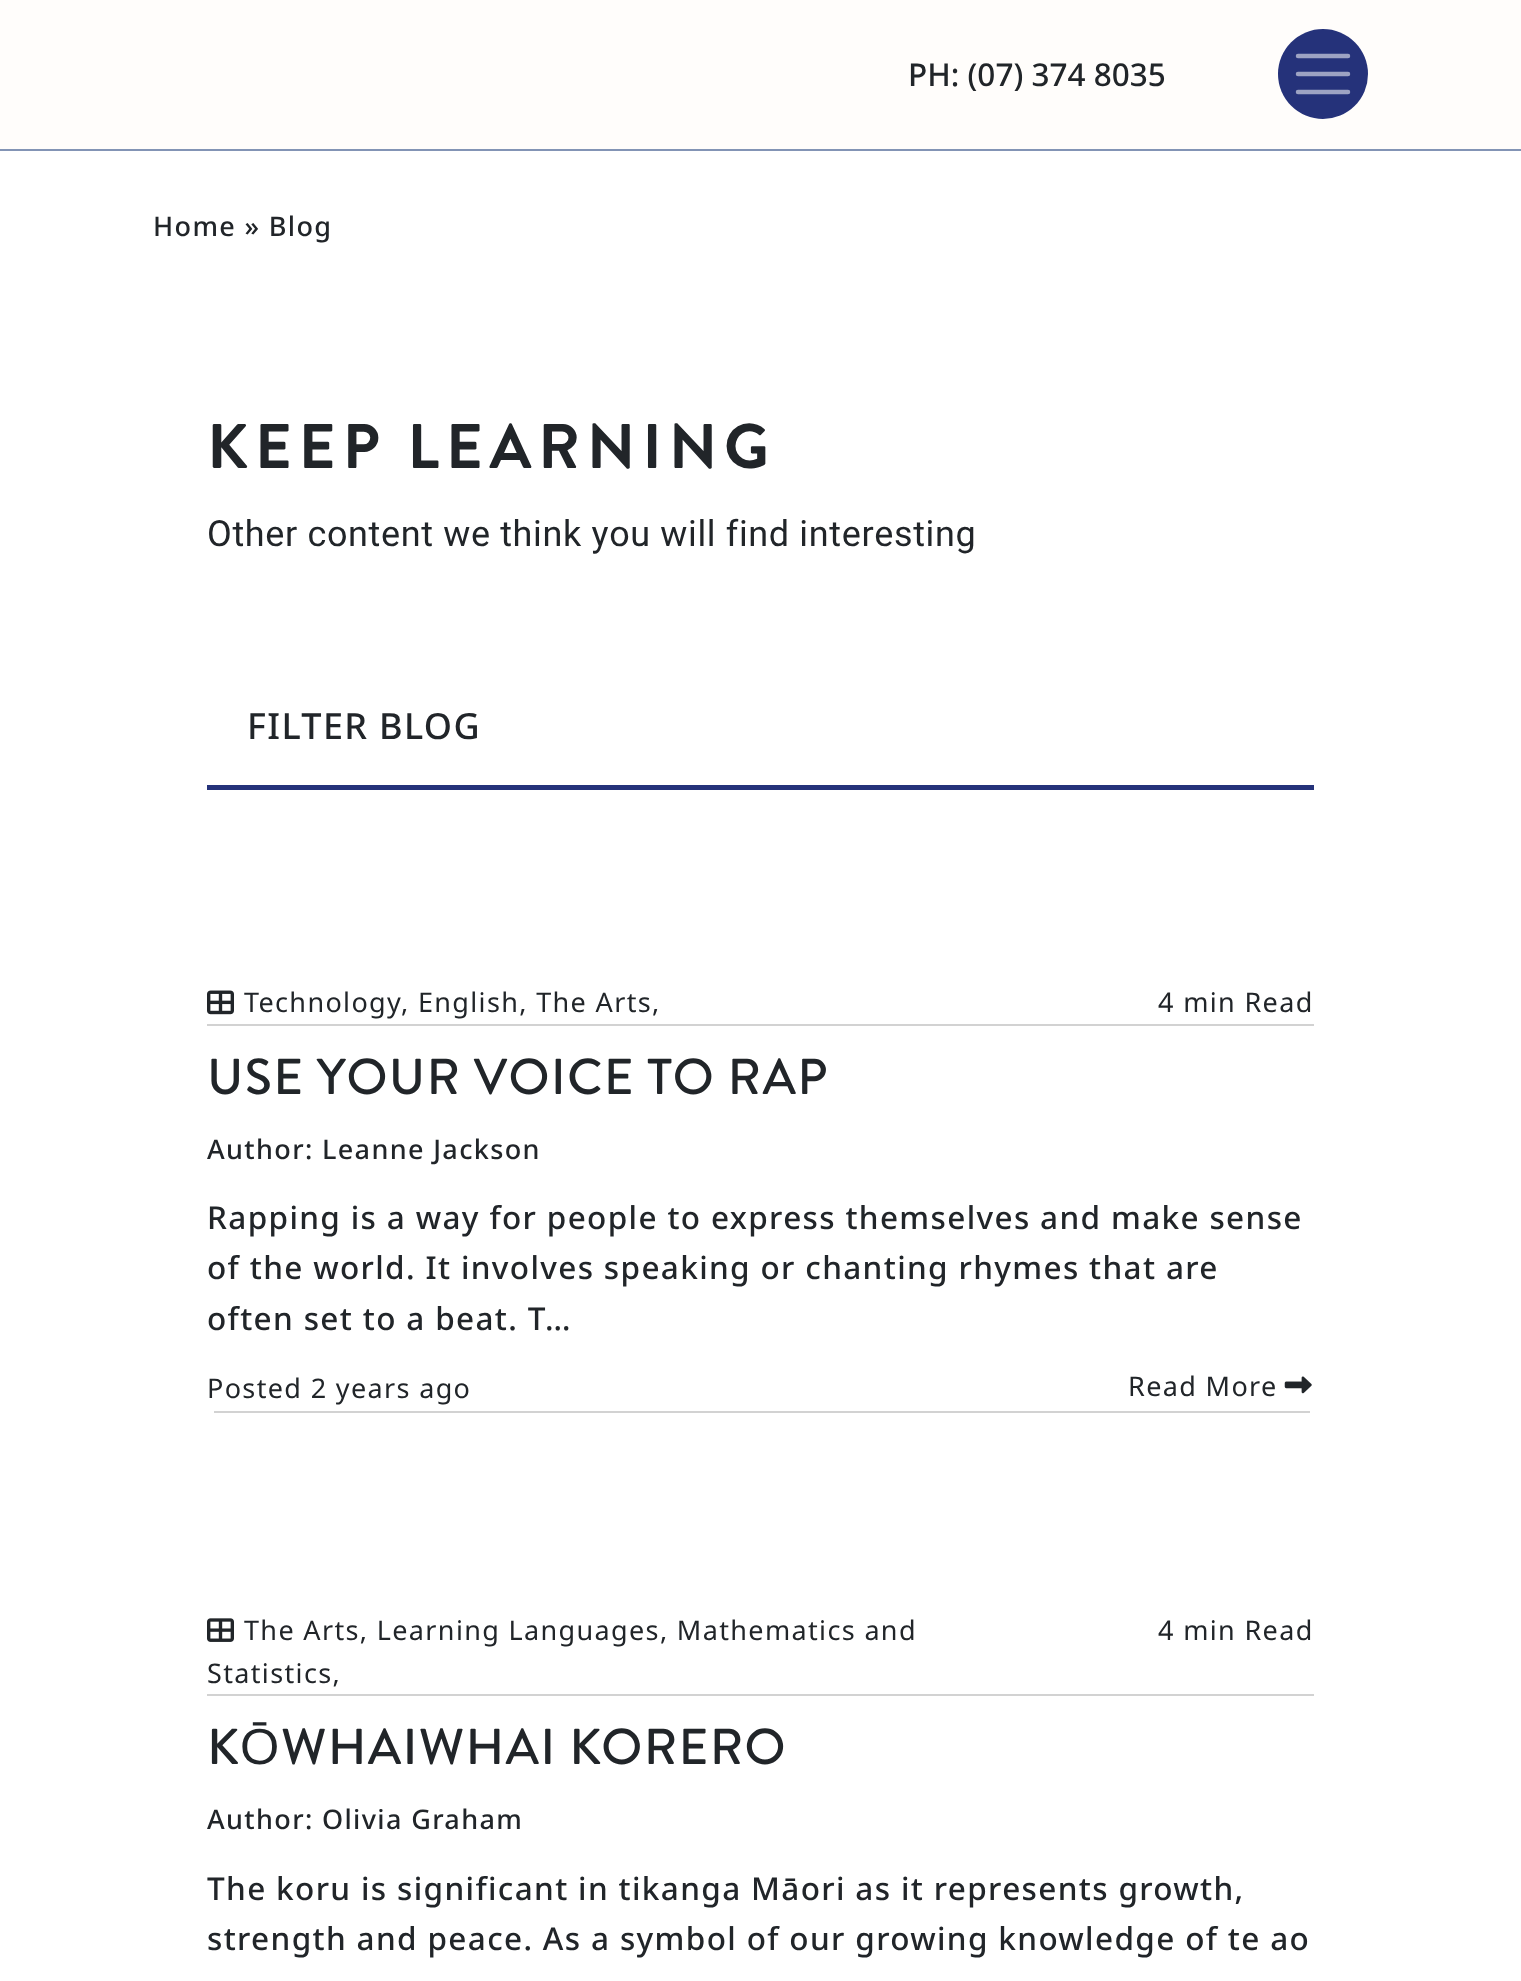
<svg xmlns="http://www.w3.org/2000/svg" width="1521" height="1981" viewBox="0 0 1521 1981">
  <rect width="100%" height="100%" fill="rgb(255,255,255)"/>
  <rect x="0" y="0" width="1521" height="149" fill="rgb(255,253,251)"/>
  <rect x="0" y="149" width="1521" height="2" fill="rgb(131,148,181)"/>
  <text x="908" y="86" font-family="Noto Sans" font-size="31.5" font-weight="500" fill="rgb(33,37,41)">PH: (07) 374 8035</text>
  <circle cx="1323" cy="74" r="45" fill="rgb(37,50,122)"/>
  <path d="M1298 56H1348M1298 74H1348M1298 92H1348" fill="none" stroke="rgb(157,163,195)" stroke-width="4.5" stroke-linecap="round"/>
  <text x="153" y="236" font-family="Noto Sans" font-size="27" font-weight="500" letter-spacing="1.35" fill="rgb(33,37,41)">Home » Blog</text>
  <text x="207" y="468" font-family="Brandon Grotesque" font-size="63" font-weight="bold" letter-spacing="6.75" fill="rgb(33,37,41)">KEEP LEARNING</text>
  <text x="207" y="546" font-family="Roboto" font-size="36" letter-spacing="0.65" fill="rgb(33,37,41)">Other content we think you will find interesting</text>
  <text x="247" y="739" font-family="Noto Sans" font-size="36" font-weight="500" letter-spacing="1.35" fill="rgb(33,37,41)">FILTER BLOG</text>
  <rect x="207" y="785" width="1107" height="5" fill="rgb(37,50,122)"/>
  <rect x="207" y="1024" width="1107" height="2" fill="rgb(210,210,210)"/>
  <image x="207" y="990" width="27" height="25" href="pic1.png"/>
  <g font-family="Noto Sans" font-size="27" letter-spacing="1.35" fill="rgb(33,37,41)">
    <text x="244" y="1012">Technology</text>
    <text x="401" y="1012">, English, The Arts,</text>
    <text x="1158" y="1012">4 min Read</text>
  </g>
  <text x="207" y="1094" font-family="Brandon Grotesque" font-size="50.5" font-weight="500" letter-spacing="1.35" fill="rgb(33,37,41)">USE YOUR VOICE TO RAP</text>
  <text x="207" y="1159" font-family="Noto Sans" font-size="27" font-weight="500" letter-spacing="1.35" fill="rgb(33,37,41)">Author: Leanne Jackson</text>
  <g font-family="Noto Sans" font-size="31.5" font-weight="500" letter-spacing="1.35" fill="rgb(33,37,41)">
    <text>
      <tspan x="207" y="1229">Rapping is a way for people to express themselves and make sense</tspan>
      <tspan x="207" y="1279">of the world. It involves speaking or chanting rhymes that are</tspan>
      <tspan x="207" y="1330">often set to a beat. T…</tspan>
    </text>
  </g>
  <rect x="214" y="1411" width="1096" height="2" fill="rgb(210,210,210)"/>
  <g font-family="Noto Sans" font-size="27" letter-spacing="1.35" fill="rgb(33,37,41)">
    <text x="207" y="1398">Posted 2 years ago</text>
    <text x="1128" y="1396">Read More</text>
  </g>
  <image x="1284" y="1376" width="28" height="18" href="pic2.png"/>
  <rect x="207" y="1694" width="1107" height="2" fill="rgb(210,210,210)"/>
  <image x="207" y="1618" width="27" height="24" href="pic3.png"/>
  <g font-family="Noto Sans" font-size="27" letter-spacing="1.35" fill="rgb(33,37,41)">
    <text x="244" y="1640">The Arts, Learning Languages, Mathematics and</text>
    <text x="207" y="1683">Statistics,</text>
    <text x="1158" y="1640">4 min Read</text>
  </g>
  <text x="207" y="1764" font-family="Brandon Grotesque" font-size="50.5" font-weight="500" letter-spacing="1.35" fill="rgb(33,37,41)">K</text>
  <text x="240" y="1764" font-family="Liberation Sans" font-size="50.5" letter-spacing="1.35" fill="rgb(33,37,41)">Ō</text>
  <text x="281" y="1764" font-family="Brandon Grotesque" font-size="50.5" font-weight="500" letter-spacing="1.35" fill="rgb(33,37,41)">WHAIWHAI KORERO</text>
  <text x="207" y="1829" font-family="Noto Sans" font-size="27" font-weight="500" letter-spacing="1.35" fill="rgb(33,37,41)">Author: Olivia Graham</text>
  <g font-family="Noto Sans" font-size="31.5" font-weight="500" letter-spacing="1.35" fill="rgb(33,37,41)">
    <text>
      <tspan x="207" y="1900">The koru is significant in tikanga Māori as it represents growth,</tspan>
      <tspan x="207" y="1950">strength and peace. As a symbol of our growing knowledge of te ao</tspan>
    </text>
  </g>
</svg>
